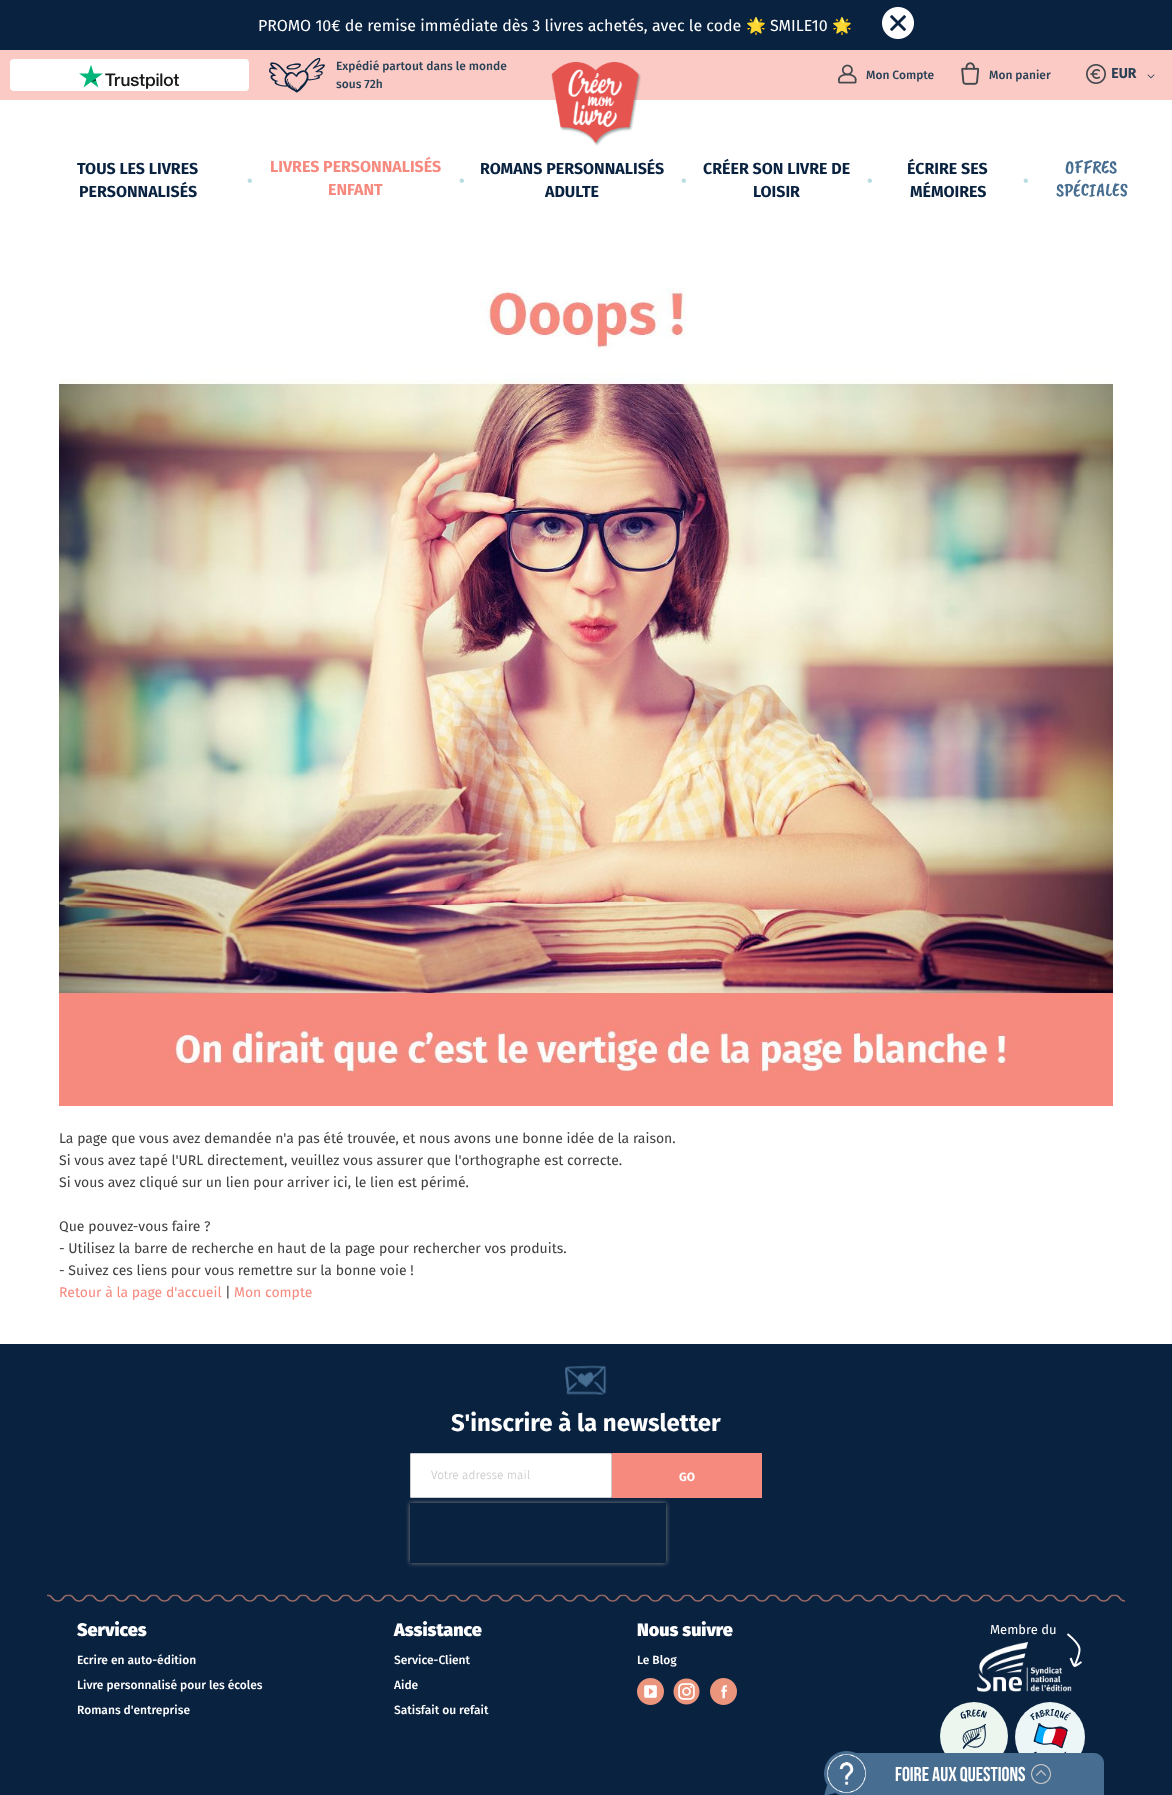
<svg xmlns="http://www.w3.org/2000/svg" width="1172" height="1795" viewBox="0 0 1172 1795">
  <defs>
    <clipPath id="clip1"><path d="M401 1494H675V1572H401ZM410 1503H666V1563H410Z" clip-rule="evenodd"/></clipPath>
  </defs>
  <rect width="100%" height="100%" fill="rgb(255,255,255)"/>
  <rect x="0" y="0" width="1172" height="50" fill="rgb(9,34,64)"/>
  <text x="258" y="31" font-family="Fira Sans" font-size="16" fill="rgb(255,255,255)">PROMO 10€ de remise immédiate dès 3 livres achetés, avec le code</text>
  <text x="746" y="31" font-family="Noto Color Emoji" font-size="16" fill="rgb(255,255,255)">🌟</text>
  <text x="770" y="31" font-family="Fira Sans" font-size="16" fill="rgb(255,255,255)">SMILE10</text>
  <text x="832" y="31" font-family="Noto Color Emoji" font-size="16" fill="rgb(255,255,255)">🌟</text>
  <image x="882" y="7" width="32" height="32" href="pic1.png"/>
  <rect x="0" y="50" width="1172" height="50" fill="rgb(251,202,197)"/>
  <rect x="10" y="59" width="239" height="32" rx="4" fill="rgb(255,255,255)"/>
  <image x="79" y="65" width="100" height="24" href="pic2.png"/>
  <image x="269" y="58" width="56" height="35" href="pic3.png"/>
  <g font-family="Fira Sans" font-size="12" font-weight="500" fill="rgb(41,64,85)">
    <text>
      <tspan x="336" y="70">Expédié partout dans le monde</tspan>
      <tspan x="336" y="88">sous 72h</tspan>
    </text>
  </g>
  <image x="551" y="62" width="90" height="84" href="pic4.png"/>
  <image x="838" y="64" width="19" height="20" href="pic5.png"/>
  <text x="866" y="79" font-family="Fira Sans" font-size="12" font-weight="500" fill="rgb(41,64,85)">Mon Compte</text>
  <image x="961" y="62" width="18" height="23" href="pic6.png"/>
  <text x="989" y="79" font-family="Fira Sans" font-size="12" font-weight="500" fill="rgb(41,64,85)">Mon panier</text>
  <image x="1086" y="64" width="20" height="20" href="pic7.png"/>
  <text x="1111" y="78" font-family="'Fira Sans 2'" font-size="14" font-weight="bold" fill="rgb(41,64,85)">EUR</text>
  <image x="1147" y="74" width="8" height="5" href="pic8.png"/>
  <g font-family="Fira Sans" font-size="16" font-weight="bold" fill="rgb(9,34,64)">
    <text x="77" y="174">TOUS LES LIVRES</text>
    <text x="79" y="197">PERSONNALISÉS</text>
  </g>
  <text x="247" y="186" font-family="Liberation Serif" font-size="16" font-weight="bold" fill="rgb(183,221,227)">•</text>
  <g font-family="Fira Sans" font-size="16" font-weight="bold" fill="rgb(246,138,127)">
    <text x="270" y="172">LIVRES PERSONNALISÉS</text>
    <text x="328" y="195">ENFANT</text>
  </g>
  <text x="459" y="186" font-family="Liberation Serif" font-size="16" font-weight="bold" fill="rgb(183,221,227)">•</text>
  <g font-family="Fira Sans" font-size="16" font-weight="bold" fill="rgb(9,34,64)">
    <text x="480" y="174">ROMANS PERSONNALISÉS</text>
    <text x="545" y="197">ADULTE</text>
  </g>
  <text x="681" y="186" font-family="Liberation Serif" font-size="16" font-weight="bold" fill="rgb(183,221,227)">•</text>
  <g font-family="Fira Sans" font-size="16" font-weight="bold" fill="rgb(9,34,64)">
    <text x="703" y="174">CRÉER SON LIVRE DE</text>
    <text x="753" y="197">LOISIR</text>
  </g>
  <text x="867" y="186" font-family="Liberation Serif" font-size="16" font-weight="bold" fill="rgb(183,221,227)">•</text>
  <g font-family="Fira Sans" font-size="16" font-weight="bold" fill="rgb(9,34,64)">
    <text x="907" y="174">ÉCRIRE SES</text>
    <text x="910" y="197">MÉMOIRES</text>
  </g>
  <text x="1023" y="186" font-family="Liberation Serif" font-size="16" font-weight="bold" fill="rgb(183,221,227)">•</text>
  <g font-family="Caveat Brush" font-size="19" fill="rgb(71,109,145)">
    <text x="1065" y="173">OFFRES</text>
    <text x="1056" y="196">SPÉCIALES</text>
  </g>
  <image x="59" y="288" width="1054" height="818" href="pic9.png"/>
  <g font-family="Fira Sans" font-size="14" fill="rgb(64,64,64)">
    <text>
      <tspan x="59" y="1143">La page que vous avez demandée n'a pas été trouvée, et nous avons une bonne idée de la raison.</tspan>
      <tspan x="59" y="1165">Si vous avez tapé l'URL directement, veuillez vous assurer que l'orthographe est correcte.</tspan>
      <tspan x="59" y="1187">Si vous avez cliqué sur un lien pour arriver ici, le lien est périmé.</tspan>
    </text>
    <text>
      <tspan x="59" y="1231">Que pouvez-vous faire ?</tspan>
      <tspan x="59" y="1253">- Utilisez la barre de recherche en haut de la page pour rechercher vos produits.</tspan>
      <tspan x="59" y="1275">- Suivez ces liens pour vous remettre sur la bonne voie !</tspan>
    </text>
  </g>
  <text x="59" y="1297" font-family="Fira Sans" font-size="14" fill="rgb(246,138,127)">Retour à la page d'accueil</text>
  <text x="225" y="1297" font-family="Fira Sans" font-size="14" fill="rgb(64,64,64)">|</text>
  <text x="234" y="1297" font-family="Fira Sans" font-size="14" fill="rgb(246,138,127)">Mon compte</text>
  <rect x="0" y="1344" width="1172" height="451" fill="rgb(9,34,64)"/>
  <image x="565" y="1365" width="42" height="30" href="pic10.png"/>
  <text x="451" y="1431" font-family="Fira Sans" font-size="24" font-weight="bold" fill="rgb(255,255,255)">S'inscrire à la newsletter</text>
  <g clip-path="url(#clip1)">
    <rect x="410" y="1503" width="256" height="60" fill="rgb(128,128,128)" filter="blur(2.5px)"/>
  </g>
  <rect x="410.5" y="1453.5" width="201" height="44" rx="0.5" fill="rgb(255,255,255)" stroke="rgb(204,204,204)"/>
  <text x="431" y="1479" font-family="Fira Sans" font-size="12" font-weight="300" fill="rgb(194,194,194)">Votre adresse mail</text>
  <rect x="612" y="1453" width="150" height="45" fill="rgb(246,138,127)"/>
  <text x="679" y="1481" font-family="Fira Sans" font-size="12" font-weight="bold" fill="rgb(255,255,255)">GO</text>
  <image x="47" y="1594" width="1078" height="8" href="pic11.png"/>
  <text x="77" y="1636" font-family="Fira Sans" font-size="18" font-weight="900" fill="rgb(255,255,255)">Services</text>
  <g font-family="Fira Sans" font-size="12" font-weight="500" fill="rgb(255,255,255)">
    <text x="77" y="1664">Ecrire en auto-édition</text>
    <text x="77" y="1689">Livre personnalisé pour les écoles</text>
    <text x="77" y="1714">Romans d'entreprise</text>
  </g>
  <text x="394" y="1636" font-family="Fira Sans" font-size="18" font-weight="900" fill="rgb(255,255,255)">Assistance</text>
  <g font-family="Fira Sans" font-size="12" font-weight="500" fill="rgb(255,255,255)">
    <text x="394" y="1664">Service-Client</text>
    <text x="394" y="1689">Aide</text>
    <text x="394" y="1714">Satisfait ou refait</text>
  </g>
  <text x="637" y="1636" font-family="Fira Sans" font-size="18" font-weight="900" fill="rgb(255,255,255)">Nous suivre</text>
  <text x="637" y="1664" font-family="Fira Sans" font-size="12" font-weight="500" fill="rgb(255,255,255)">Le Blog</text>
  <image x="637" y="1678" width="27" height="27" href="pic12.png"/>
  <image x="673" y="1678" width="27" height="27" href="pic13.png"/>
  <image x="710" y="1678" width="27" height="27" href="pic14.png"/>
  <text x="990" y="1634" font-family="Fira Sans" font-size="13" fill="rgb(255,255,255)">Membre du</text>
  <image x="977" y="1642" width="95" height="50" href="pic15.png"/>
  <path d="M1067.5 1634C1084.5 1648 1080.5 1650.5 1074.5 1666M1070.5 1658C1075 1668 1072.5 1668 1081.5 1662" fill="none" stroke="rgb(255,255,255)" stroke-width="2"/>
  <image x="940" y="1702" width="68" height="51" href="pic16.png"/>
  <image x="1015" y="1702" width="70" height="51" href="pic17.png"/>
  <path d="M844 1753H1094C1099.5 1753 1104 1757.5 1104 1763V1795H844Z" fill="rgb(71,109,145)"/>
  <image x="824" y="1751" width="43" height="44" href="pic18.png"/>
  <text x="895" y="1781" font-family="Bebas Neue" font-size="20" fill="rgb(255,255,255)">Foire aux questions</text>
  <image x="1031" y="1764" width="20" height="20" href="pic19.png"/>
</svg>
